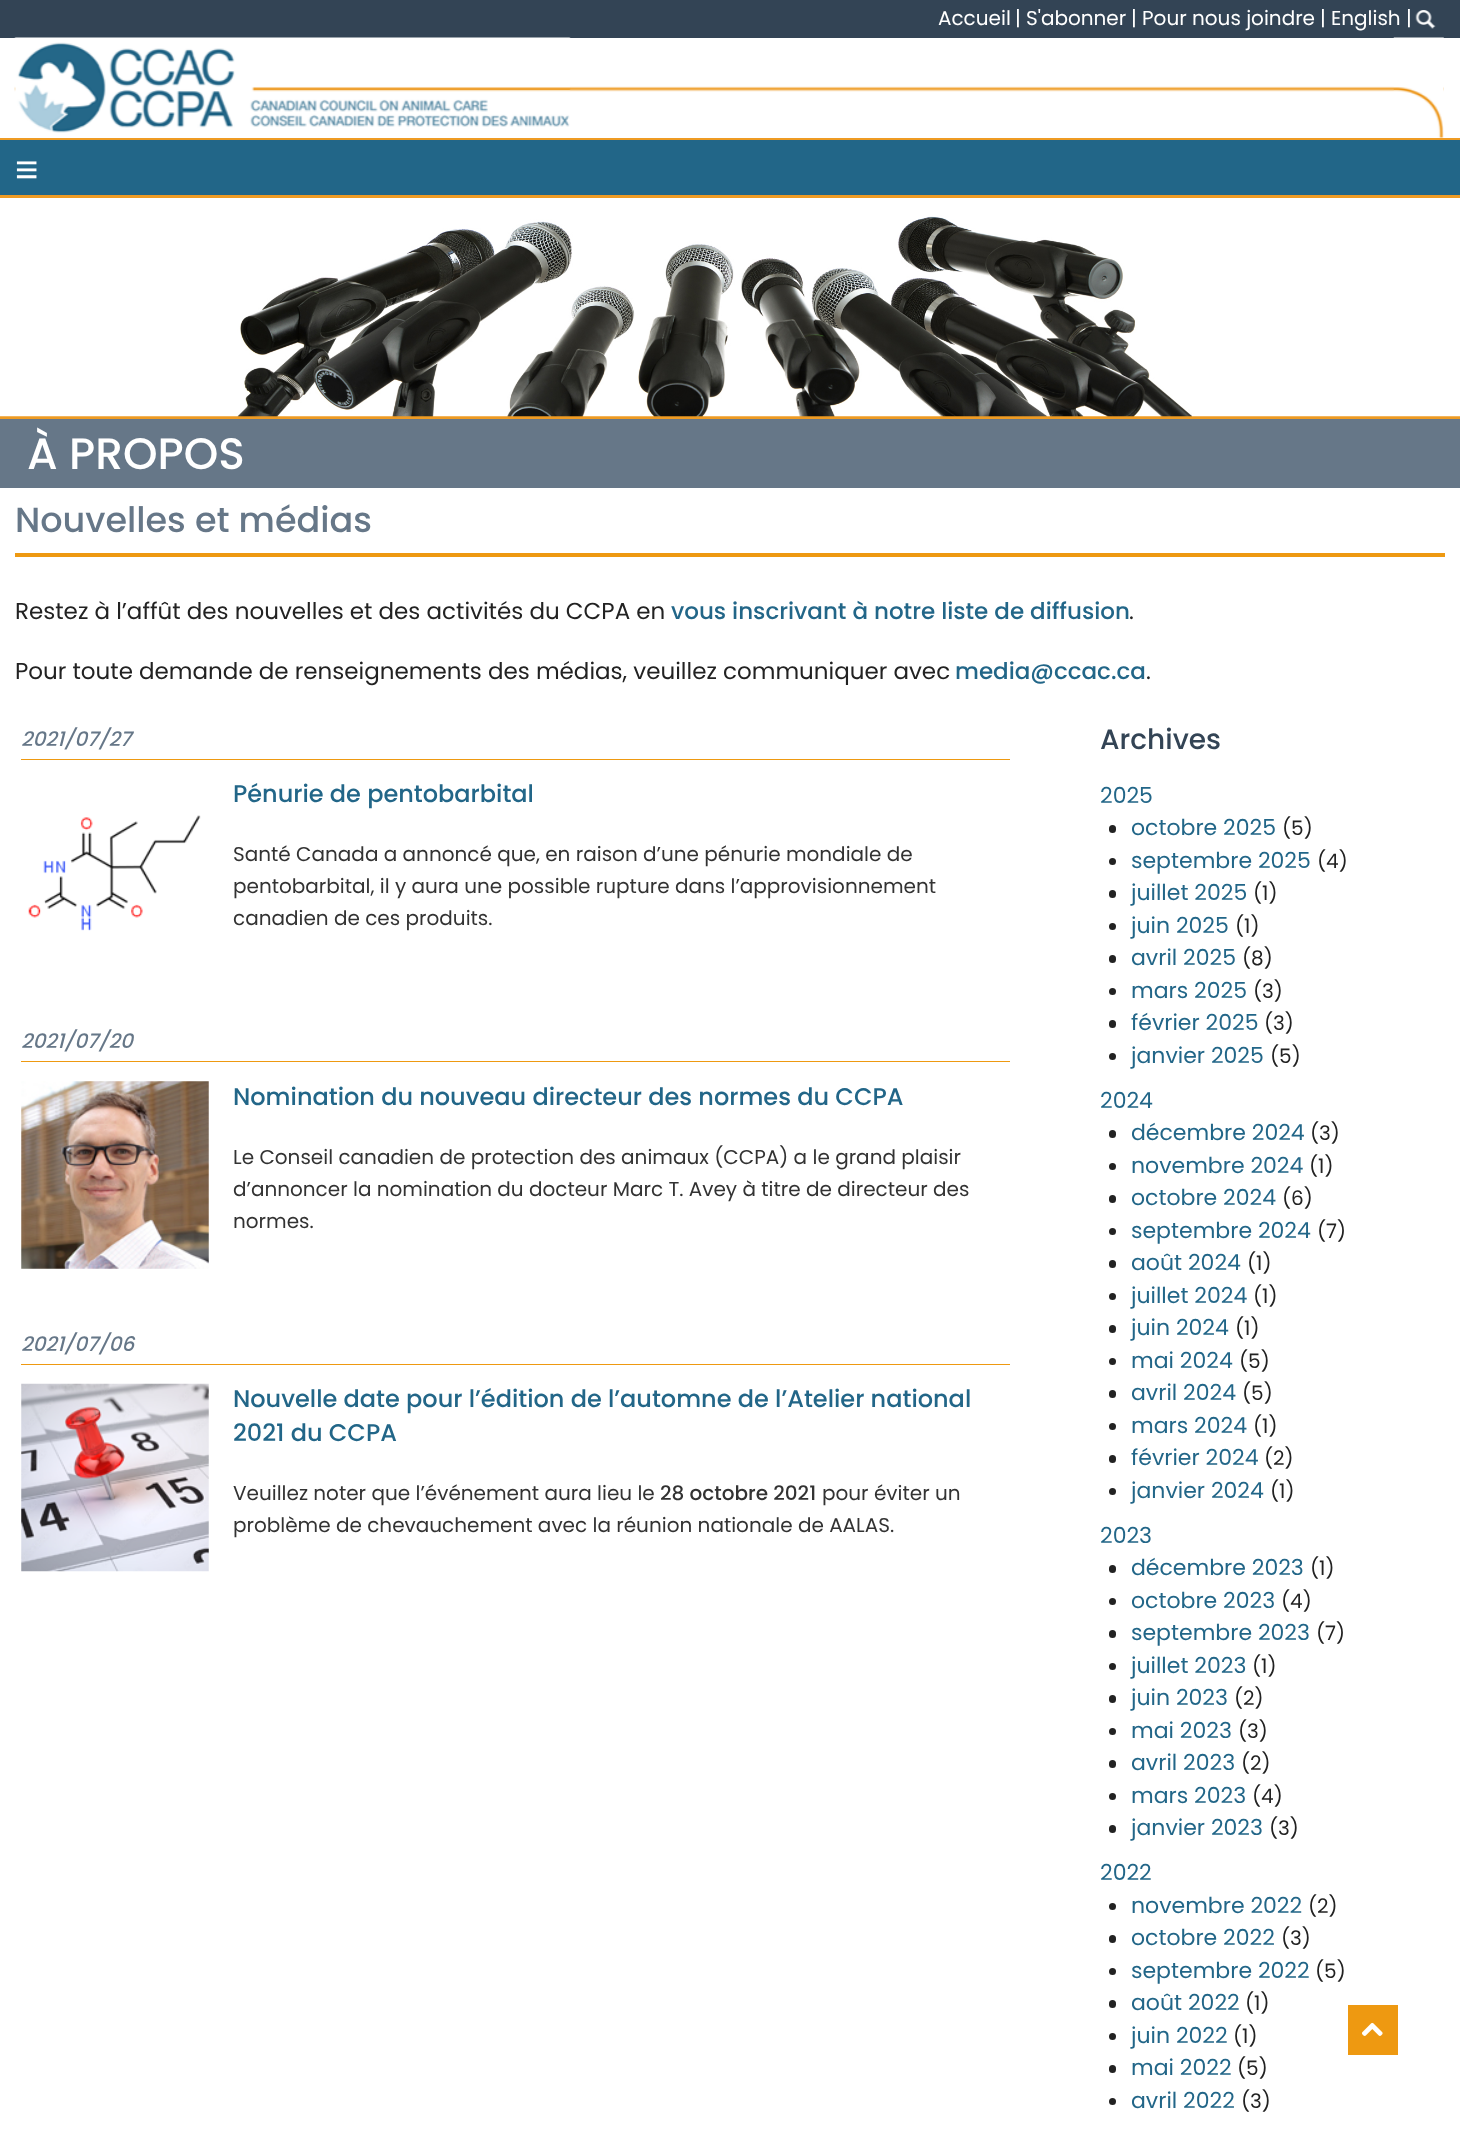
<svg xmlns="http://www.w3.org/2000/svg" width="1460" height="2129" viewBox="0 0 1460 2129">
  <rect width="100%" height="100%" fill="rgb(255,255,255)"/>
  <rect x="0" y="0" width="1460" height="38" fill="rgb(51,68,85)"/>
  <g font-family="Poppins" font-size="20" fill="rgb(255,255,255)">
    <text x="938" y="25">Accueil</text>
    <text x="1015" y="25">|</text>
    <text x="1026" y="25">S'abonner</text>
    <text x="1131" y="25">|</text>
    <text x="1142" y="25">Pour nous joindre</text>
    <text x="1320" y="25">|</text>
    <text x="1331" y="25">English</text>
    <text x="1406" y="25">|</text>
  </g>
  <image x="1415" y="10" width="21" height="19" href="pic1.png"/>
  <image x="14" y="86" width="1430" height="6" href="pic2.png"/>
  <image x="14" y="37" width="557" height="96" href="pic3.png"/>
  <image x="1393" y="37" width="51" height="101" href="pic4.png"/>
  <rect x="0" y="138" width="1460" height="2" fill="rgb(238,155,36)"/>
  <rect x="0" y="195" width="1460" height="3" fill="rgb(238,155,36)"/>
  <rect x="0" y="140" width="1460" height="55" fill="rgb(34,102,136)"/>
  <text x="15" y="183" font-family="Liberation Sans" font-size="40" fill="rgb(255,255,255)">≡</text>
  <rect x="0" y="416" width="1460" height="3" fill="rgb(238,155,36)"/>
  <image x="0" y="198" width="1460" height="219" href="pic5.png"/>
  <rect x="0" y="419" width="1460" height="69" fill="rgb(102,119,136)"/>
  <text x="27" y="469" font-family="Poppins" font-size="44" font-weight="500" fill="rgb(255,255,255)">À PROPOS</text>
  <rect x="15" y="553" width="1430" height="4" fill="rgb(238,153,17)"/>
  <text x="15" y="532" font-family="Poppins" font-size="35" font-weight="500" fill="rgb(102,119,136)">Nouvelles et médias</text>
  <text x="15" y="619" font-family="Poppins" font-size="23" fill="rgb(34,34,34)">Restez à l’affût des nouvelles et des activités du CCPA en</text>
  <text x="671" y="619" font-family="Poppins" font-size="23" font-weight="500" fill="rgb(34,102,136)">vous inscrivant à notre liste de diffusion</text>
  <g font-family="Poppins" font-size="23" fill="rgb(34,34,34)">
    <text x="1129" y="619">.</text>
    <text x="15" y="679">Pour toute demande de renseignements des médias, veuillez communiquer avec</text>
  </g>
  <text x="955" y="679" font-family="Poppins" font-size="23" font-weight="500" fill="rgb(34,102,136)">media@ccac.ca</text>
  <text x="1146" y="679" font-family="Poppins" font-size="23" fill="rgb(34,34,34)">.</text>
  <text x="21" y="746" font-family="Poppins" font-size="20" font-weight="500" font-style="italic" fill="rgb(102,119,136)">2021/07/27</text>
  <rect x="21" y="759" width="989" height="1" fill="rgb(238,153,17)"/>
  <text x="233" y="802" font-family="Poppins" font-size="24" font-weight="500" fill="rgb(34,102,136)">Pénurie de pentobarbital</text>
  <image x="28" y="815" width="173" height="116" href="pic6.png"/>
  <g font-family="Poppins" font-size="20" fill="rgb(51,51,51)">
    <text>
      <tspan x="233" y="861">Santé Canada a annoncé que, en raison d’une pénurie mondiale de</tspan>
      <tspan x="233" y="893">pentobarbital, il y aura une possible rupture dans l’approvisionnement</tspan>
      <tspan x="233" y="925">canadien de ces produits.</tspan>
    </text>
  </g>
  <text x="21" y="1048" font-family="Poppins" font-size="20" font-weight="500" font-style="italic" fill="rgb(102,119,136)">2021/07/20</text>
  <rect x="21" y="1061" width="989" height="1" fill="rgb(238,153,17)"/>
  <image x="21" y="1081" width="188" height="188" href="pic7.png"/>
  <text x="233" y="1105" font-family="Poppins" font-size="24" font-weight="500" fill="rgb(34,102,136)">Nomination du nouveau directeur des normes du CCPA</text>
  <g font-family="Poppins" font-size="20" fill="rgb(51,51,51)">
    <text>
      <tspan x="233" y="1164">Le Conseil canadien de protection des animaux (CCPA) a le grand plaisir</tspan>
      <tspan x="233" y="1196">d’annoncer la nomination du docteur Marc T. Avey à titre de directeur des</tspan>
      <tspan x="233" y="1228">normes.</tspan>
    </text>
  </g>
  <text x="21" y="1351" font-family="Poppins" font-size="20" font-weight="500" font-style="italic" fill="rgb(102,119,136)">2021/07/06</text>
  <rect x="21" y="1364" width="989" height="1" fill="rgb(238,153,17)"/>
  <image x="21" y="1383" width="188" height="189" href="pic8.png"/>
  <g font-family="Poppins" font-size="24" font-weight="500" fill="rgb(34,102,136)">
    <text>
      <tspan x="233" y="1407">Nouvelle date pour l’édition de l’automne de l’Atelier national</tspan>
      <tspan x="233" y="1441">2021 du CCPA</tspan>
    </text>
  </g>
  <text x="233" y="1500" font-family="Poppins" font-size="20" fill="rgb(51,51,51)">Veuillez noter que l’événement aura lieu le</text>
  <text x="660" y="1500" font-family="Poppins" font-size="20" font-weight="500" fill="rgb(51,51,51)">28 octobre 2021</text>
  <g font-family="Poppins" font-size="20" fill="rgb(51,51,51)">
    <text x="822" y="1500">pour éviter un</text>
    <text x="233" y="1532">problème de chevauchement avec la réunion nationale de AALAS.</text>
  </g>
  <text x="1100" y="749" font-family="Poppins" font-size="28" font-weight="500" fill="rgb(51,68,85)">Archives</text>
  <text x="1100" y="803" font-family="Poppins" font-size="22" fill="rgb(34,102,136)">2025</text>
  <rect x="1109" y="825" width="7" height="8" rx="3.5" fill="rgb(34,34,34)"/>
  <text x="1131" y="835" font-family="Poppins" font-size="22" fill="rgb(34,102,136)">octobre 2025</text>
  <text x="1282" y="835" font-family="Poppins" font-size="20" fill="rgb(34,34,34)">(5)</text>
  <circle cx="1112.5" cy="861.5" r="3.5" fill="rgb(34,34,34)"/>
  <text x="1131" y="868" font-family="Poppins" font-size="22" fill="rgb(34,102,136)">septembre 2025</text>
  <text x="1317" y="868" font-family="Poppins" font-size="20" fill="rgb(34,34,34)">(4)</text>
  <rect x="1109" y="890" width="7" height="8" rx="3.5" fill="rgb(34,34,34)"/>
  <text x="1131" y="900" font-family="Poppins" font-size="22" fill="rgb(34,102,136)">juillet 2025</text>
  <text x="1253" y="900" font-family="Poppins" font-size="20" fill="rgb(34,34,34)">(1)</text>
  <circle cx="1112.5" cy="926.5" r="3.5" fill="rgb(34,34,34)"/>
  <text x="1131" y="933" font-family="Poppins" font-size="22" fill="rgb(34,102,136)">juin 2025</text>
  <text x="1235" y="933" font-family="Poppins" font-size="20" fill="rgb(34,34,34)">(1)</text>
  <rect x="1109" y="955" width="7" height="8" rx="3.5" fill="rgb(34,34,34)"/>
  <text x="1131" y="965" font-family="Poppins" font-size="22" fill="rgb(34,102,136)">avril 2025</text>
  <text x="1242" y="965" font-family="Poppins" font-size="20" fill="rgb(34,34,34)">(8)</text>
  <circle cx="1112.5" cy="991.5" r="3.5" fill="rgb(34,34,34)"/>
  <text x="1131" y="998" font-family="Poppins" font-size="22" fill="rgb(34,102,136)">mars 2025</text>
  <text x="1253" y="998" font-family="Poppins" font-size="20" fill="rgb(34,34,34)">(3)</text>
  <rect x="1109" y="1020" width="7" height="8" rx="3.5" fill="rgb(34,34,34)"/>
  <text x="1131" y="1030" font-family="Poppins" font-size="22" fill="rgb(34,102,136)">février 2025</text>
  <text x="1264" y="1030" font-family="Poppins" font-size="20" fill="rgb(34,34,34)">(3)</text>
  <circle cx="1112.5" cy="1056.5" r="3.5" fill="rgb(34,34,34)"/>
  <text x="1131" y="1063" font-family="Poppins" font-size="22" fill="rgb(34,102,136)">janvier 2025</text>
  <text x="1270" y="1063" font-family="Poppins" font-size="20" fill="rgb(34,34,34)">(5)</text>
  <text x="1100" y="1108" font-family="Poppins" font-size="22" fill="rgb(34,102,136)">2024</text>
  <rect x="1109" y="1130" width="7" height="8" rx="3.5" fill="rgb(34,34,34)"/>
  <text x="1131" y="1140" font-family="Poppins" font-size="22" fill="rgb(34,102,136)">décembre 2024</text>
  <text x="1310" y="1140" font-family="Poppins" font-size="20" fill="rgb(34,34,34)">(3)</text>
  <circle cx="1112.5" cy="1166.5" r="3.5" fill="rgb(34,34,34)"/>
  <text x="1131" y="1173" font-family="Poppins" font-size="22" fill="rgb(34,102,136)">novembre 2024</text>
  <text x="1309" y="1173" font-family="Poppins" font-size="20" fill="rgb(34,34,34)">(1)</text>
  <rect x="1109" y="1195" width="7" height="8" rx="3.5" fill="rgb(34,34,34)"/>
  <text x="1131" y="1205" font-family="Poppins" font-size="22" fill="rgb(34,102,136)">octobre 2024</text>
  <text x="1282" y="1205" font-family="Poppins" font-size="20" fill="rgb(34,34,34)">(6)</text>
  <circle cx="1112.5" cy="1231.5" r="3.5" fill="rgb(34,34,34)"/>
  <text x="1131" y="1238" font-family="Poppins" font-size="22" fill="rgb(34,102,136)">septembre 2024</text>
  <text x="1317" y="1238" font-family="Poppins" font-size="20" fill="rgb(34,34,34)">(7)</text>
  <rect x="1109" y="1260" width="7" height="8" rx="3.5" fill="rgb(34,34,34)"/>
  <text x="1131" y="1270" font-family="Poppins" font-size="22" fill="rgb(34,102,136)">août 2024</text>
  <text x="1247" y="1270" font-family="Poppins" font-size="20" fill="rgb(34,34,34)">(1)</text>
  <circle cx="1112.5" cy="1296.5" r="3.5" fill="rgb(34,34,34)"/>
  <text x="1131" y="1303" font-family="Poppins" font-size="22" fill="rgb(34,102,136)">juillet 2024</text>
  <text x="1253" y="1303" font-family="Poppins" font-size="20" fill="rgb(34,34,34)">(1)</text>
  <rect x="1109" y="1325" width="7" height="8" rx="3.5" fill="rgb(34,34,34)"/>
  <text x="1131" y="1335" font-family="Poppins" font-size="22" fill="rgb(34,102,136)">juin 2024</text>
  <text x="1235" y="1335" font-family="Poppins" font-size="20" fill="rgb(34,34,34)">(1)</text>
  <circle cx="1112.5" cy="1361.5" r="3.5" fill="rgb(34,34,34)"/>
  <text x="1131" y="1368" font-family="Poppins" font-size="22" fill="rgb(34,102,136)">mai 2024</text>
  <text x="1239" y="1368" font-family="Poppins" font-size="20" fill="rgb(34,34,34)">(5)</text>
  <rect x="1109" y="1390" width="7" height="8" rx="3.5" fill="rgb(34,34,34)"/>
  <text x="1131" y="1400" font-family="Poppins" font-size="22" fill="rgb(34,102,136)">avril 2024</text>
  <text x="1242" y="1400" font-family="Poppins" font-size="20" fill="rgb(34,34,34)">(5)</text>
  <circle cx="1112.5" cy="1426.5" r="3.5" fill="rgb(34,34,34)"/>
  <text x="1131" y="1433" font-family="Poppins" font-size="22" fill="rgb(34,102,136)">mars 2024</text>
  <text x="1253" y="1433" font-family="Poppins" font-size="20" fill="rgb(34,34,34)">(1)</text>
  <rect x="1109" y="1455" width="7" height="8" rx="3.5" fill="rgb(34,34,34)"/>
  <text x="1131" y="1465" font-family="Poppins" font-size="22" fill="rgb(34,102,136)">février 2024</text>
  <text x="1264" y="1465" font-family="Poppins" font-size="20" fill="rgb(34,34,34)">(2)</text>
  <circle cx="1112.5" cy="1491.5" r="3.5" fill="rgb(34,34,34)"/>
  <text x="1131" y="1498" font-family="Poppins" font-size="22" fill="rgb(34,102,136)">janvier 2024</text>
  <text x="1270" y="1498" font-family="Poppins" font-size="20" fill="rgb(34,34,34)">(1)</text>
  <text x="1100" y="1543" font-family="Poppins" font-size="22" fill="rgb(34,102,136)">2023</text>
  <rect x="1109" y="1565" width="7" height="8" rx="3.5" fill="rgb(34,34,34)"/>
  <text x="1131" y="1575" font-family="Poppins" font-size="22" fill="rgb(34,102,136)">décembre 2023</text>
  <text x="1310" y="1575" font-family="Poppins" font-size="20" fill="rgb(34,34,34)">(1)</text>
  <circle cx="1112.5" cy="1601.5" r="3.5" fill="rgb(34,34,34)"/>
  <text x="1131" y="1608" font-family="Poppins" font-size="22" fill="rgb(34,102,136)">octobre 2023</text>
  <text x="1281" y="1608" font-family="Poppins" font-size="20" fill="rgb(34,34,34)">(4)</text>
  <rect x="1109" y="1630" width="7" height="8" rx="3.5" fill="rgb(34,34,34)"/>
  <text x="1131" y="1640" font-family="Poppins" font-size="22" fill="rgb(34,102,136)">septembre 2023</text>
  <text x="1316" y="1640" font-family="Poppins" font-size="20" fill="rgb(34,34,34)">(7)</text>
  <circle cx="1112.5" cy="1666.5" r="3.5" fill="rgb(34,34,34)"/>
  <text x="1131" y="1673" font-family="Poppins" font-size="22" fill="rgb(34,102,136)">juillet 2023</text>
  <text x="1252" y="1673" font-family="Poppins" font-size="20" fill="rgb(34,34,34)">(1)</text>
  <rect x="1109" y="1695" width="7" height="8" rx="3.5" fill="rgb(34,34,34)"/>
  <text x="1131" y="1705" font-family="Poppins" font-size="22" fill="rgb(34,102,136)">juin 2023</text>
  <text x="1234" y="1705" font-family="Poppins" font-size="20" fill="rgb(34,34,34)">(2)</text>
  <circle cx="1112.5" cy="1731.5" r="3.5" fill="rgb(34,34,34)"/>
  <text x="1131" y="1738" font-family="Poppins" font-size="22" fill="rgb(34,102,136)">mai 2023</text>
  <text x="1238" y="1738" font-family="Poppins" font-size="20" fill="rgb(34,34,34)">(3)</text>
  <rect x="1109" y="1760" width="7" height="8" rx="3.5" fill="rgb(34,34,34)"/>
  <text x="1131" y="1770" font-family="Poppins" font-size="22" fill="rgb(34,102,136)">avril 2023</text>
  <text x="1241" y="1770" font-family="Poppins" font-size="20" fill="rgb(34,34,34)">(2)</text>
  <circle cx="1112.5" cy="1796.5" r="3.5" fill="rgb(34,34,34)"/>
  <text x="1131" y="1803" font-family="Poppins" font-size="22" fill="rgb(34,102,136)">mars 2023</text>
  <text x="1252" y="1803" font-family="Poppins" font-size="20" fill="rgb(34,34,34)">(4)</text>
  <rect x="1109" y="1825" width="7" height="8" rx="3.5" fill="rgb(34,34,34)"/>
  <text x="1131" y="1835" font-family="Poppins" font-size="22" fill="rgb(34,102,136)">janvier 2023</text>
  <text x="1269" y="1835" font-family="Poppins" font-size="20" fill="rgb(34,34,34)">(3)</text>
  <text x="1100" y="1880" font-family="Poppins" font-size="22" fill="rgb(34,102,136)">2022</text>
  <circle cx="1112.5" cy="1906.5" r="3.5" fill="rgb(34,34,34)"/>
  <text x="1131" y="1913" font-family="Poppins" font-size="22" fill="rgb(34,102,136)">novembre 2022</text>
  <text x="1308" y="1913" font-family="Poppins" font-size="20" fill="rgb(34,34,34)">(2)</text>
  <rect x="1109" y="1935" width="7" height="8" rx="3.5" fill="rgb(34,34,34)"/>
  <text x="1131" y="1945" font-family="Poppins" font-size="22" fill="rgb(34,102,136)">octobre 2022</text>
  <text x="1281" y="1945" font-family="Poppins" font-size="20" fill="rgb(34,34,34)">(3)</text>
  <circle cx="1112.5" cy="1971.5" r="3.5" fill="rgb(34,34,34)"/>
  <text x="1131" y="1978" font-family="Poppins" font-size="22" fill="rgb(34,102,136)">septembre 2022</text>
  <text x="1315" y="1978" font-family="Poppins" font-size="20" fill="rgb(34,34,34)">(5)</text>
  <rect x="1109" y="2000" width="7" height="8" rx="3.5" fill="rgb(34,34,34)"/>
  <text x="1131" y="2010" font-family="Poppins" font-size="22" fill="rgb(34,102,136)">août 2022</text>
  <text x="1245" y="2010" font-family="Poppins" font-size="20" fill="rgb(34,34,34)">(1)</text>
  <circle cx="1112.5" cy="2036.5" r="3.5" fill="rgb(34,34,34)"/>
  <text x="1131" y="2043" font-family="Poppins" font-size="22" fill="rgb(34,102,136)">juin 2022</text>
  <text x="1233" y="2043" font-family="Poppins" font-size="20" fill="rgb(34,34,34)">(1)</text>
  <rect x="1109" y="2065" width="7" height="8" rx="3.5" fill="rgb(34,34,34)"/>
  <text x="1131" y="2075" font-family="Poppins" font-size="22" fill="rgb(34,102,136)">mai 2022</text>
  <text x="1237" y="2075" font-family="Poppins" font-size="20" fill="rgb(34,34,34)">(5)</text>
  <circle cx="1112.5" cy="2101.5" r="3.5" fill="rgb(34,34,34)"/>
  <text x="1131" y="2108" font-family="Poppins" font-size="22" fill="rgb(34,102,136)">avril 2022</text>
  <text x="1241" y="2108" font-family="Poppins" font-size="20" fill="rgb(34,34,34)">(3)</text>
  <rect x="1348" y="2005" width="50" height="50" fill="rgb(238,153,17)"/>
  <image x="1362" y="2022" width="21" height="14" href="pic9.png"/>
</svg>
